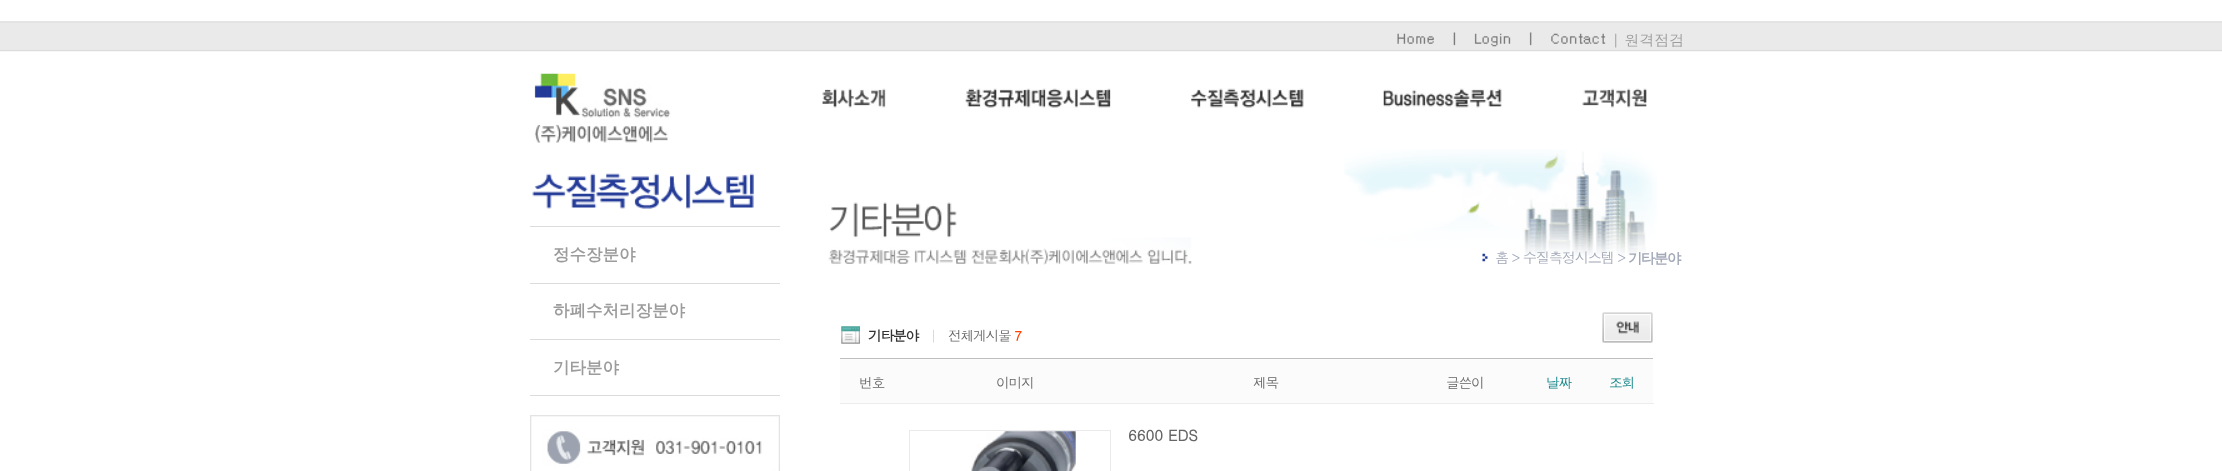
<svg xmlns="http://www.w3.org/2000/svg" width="2222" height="471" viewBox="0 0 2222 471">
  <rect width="100%" height="100%" fill="rgb(255,255,255)"/>
  <image x="0" y="21" width="2222" height="31" href="pic1.png"/>
  <image x="1397" y="33" width="37" height="11" href="pic2.png"/>
  <image x="1453" y="32" width="3" height="14" href="pic3.png"/>
  <image x="1474" y="33" width="37" height="14" href="pic4.png"/>
  <image x="1529" y="32" width="3" height="14" href="pic5.png"/>
  <image x="1551" y="33" width="55" height="11" href="pic6.png"/>
  <text x="1612" y="46" font-family="Dotum" font-size="15" fill="rgb(156,156,156)">| 원격점검</text>
  <image x="534" y="73" width="137" height="70" href="pic7.png"/>
  <image x="822" y="88" width="64" height="20" href="pic8.png"/>
  <image x="965" y="88" width="146" height="20" href="pic9.png"/>
  <image x="1191" y="88" width="113" height="20" href="pic10.png"/>
  <image x="1383" y="88" width="119" height="20" href="pic11.png"/>
  <image x="1582" y="88" width="65" height="20" href="pic12.png"/>
  <rect x="530" y="226" width="250" height="1" fill="rgb(220,220,220)"/>
  <image x="532" y="173" width="222" height="36" href="pic13.png"/>
  <rect x="530" y="283" width="250" height="1" fill="rgb(220,220,220)"/>
  <text x="553" y="260" font-family="WenQuanYi Zen Hei" font-size="16.5" font-weight="bold" fill="rgb(156,156,156)">정수장분야</text>
  <rect x="530" y="339" width="250" height="1" fill="rgb(220,220,220)"/>
  <text x="553" y="316" font-family="WenQuanYi Zen Hei" font-size="16.5" font-weight="bold" fill="rgb(156,156,156)">하폐수처리장분야</text>
  <rect x="530" y="395" width="250" height="1" fill="rgb(220,220,220)"/>
  <text x="553" y="373" font-family="WenQuanYi Zen Hei" font-size="16.5" font-weight="bold" fill="rgb(156,156,156)">기타분야</text>
  <image x="530" y="415" width="250" height="56" href="pic14.png"/>
  <image x="1344" y="149" width="313" height="107" href="pic15.png"/>
  <image x="829" y="202" width="128" height="36" href="pic16.png"/>
  <image x="828" y="237" width="364" height="28" href="pic17.png"/>
  <image x="1482" y="253" width="6" height="9" href="pic18.png"/>
  <text x="1495" y="263" font-family="Dotum" font-size="14.25" letter-spacing="-1.25" fill="rgb(161,168,183)">홈 &gt; 수질측정시스템 &gt;</text>
  <text x="1628" y="263" font-family="WenQuanYi Zen Hei" font-size="14.25" font-weight="bold" letter-spacing="-1.25" fill="rgb(161,168,183)">기타분야</text>
  <image x="841" y="326" width="19" height="18" href="pic19.png"/>
  <text x="868" y="341" font-family="Dotum" font-size="13.75" font-weight="bold" letter-spacing="-1.25" fill="rgb(51,51,51)">기타분야</text>
  <text x="930" y="341" font-family="Dotum" font-size="13.75" letter-spacing="-1.25" fill="rgb(213,213,213)">|</text>
  <text x="948" y="341" font-family="Dotum" font-size="13.75" letter-spacing="-1.25" fill="rgb(102,102,102)">전체게시물</text>
  <text x="1014" y="341" font-family="Dotum" font-size="13.75" font-weight="bold" fill="rgb(255,66,0)">7</text>
  <image x="1602" y="312" width="51" height="31" href="pic20.png"/>
  <rect x="840" y="358" width="813" height="1" fill="rgb(191,191,191)"/>
  <rect x="840" y="359" width="813" height="44" fill="rgb(251,251,251)"/>
  <g font-family="Dotum" font-size="13.75" letter-spacing="-1.25" fill="rgb(102,102,102)">
    <text x="859" y="388">번호</text>
    <text x="996" y="388">이미지</text>
    <text x="1253" y="388">제목</text>
    <text x="1446" y="388">글쓴이</text>
  </g>
  <g font-family="Dotum" font-size="13.75" letter-spacing="-1.25" fill="rgb(14,129,133)">
    <text x="1546" y="388">날짜</text>
    <text x="1609" y="388">조회</text>
  </g>
  <rect x="840" y="403" width="814" height="1" fill="rgb(236,236,236)"/>
  <rect x="909.5" y="430.5" width="201" height="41" fill="none" stroke="rgb(234,234,234)"/>
  <image x="971" y="431" width="105" height="40" href="pic21.png"/>
  <text x="1128" y="441" font-family="Dotum" font-size="15" font-weight="bold" fill="rgb(102,102,102)">6600 EDS</text>
</svg>
